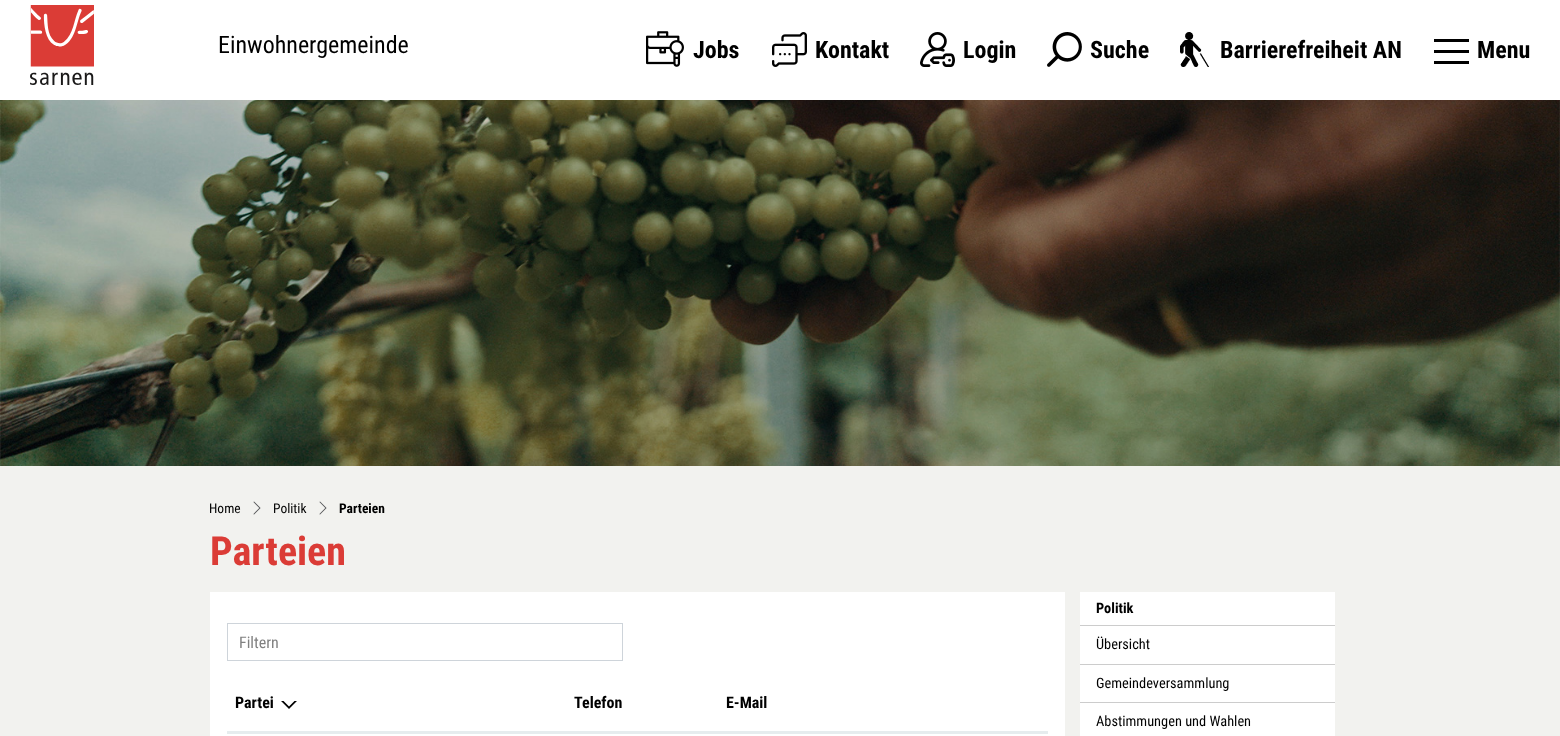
<svg xmlns="http://www.w3.org/2000/svg" width="1560" height="736" viewBox="0 0 1560 736">
  <rect width="100%" height="100%" fill="rgb(242,242,239)"/>
  <rect x="0" y="0" width="1560" height="100" fill="rgb(255,255,255)"/>
  <image x="30" y="5" width="64" height="80" href="pic1.png"/>
  <text x="218" y="53" font-family="Roboto Condensed" font-size="24" fill="rgb(0,0,0)">Einwohnergemeinde</text>
  <image x="646" y="31" width="38" height="36" href="pic2.png"/>
  <text x="693" y="58" font-family="Roboto Condensed" font-size="24" font-weight="bold" fill="rgb(0,0,0)">Jobs</text>
  <image x="772" y="32" width="35" height="35" href="pic3.png"/>
  <text x="815" y="58" font-family="Roboto Condensed" font-size="24" font-weight="bold" fill="rgb(0,0,0)">Kontakt</text>
  <image x="920" y="32" width="35" height="35" href="pic4.png"/>
  <text x="963" y="58" font-family="Roboto Condensed" font-size="24" font-weight="bold" fill="rgb(0,0,0)">Login</text>
  <image x="1047" y="32" width="35" height="35" href="pic5.png"/>
  <text x="1090" y="58" font-family="Roboto Condensed" font-size="24" font-weight="bold" fill="rgb(0,0,0)">Suche</text>
  <image x="1180" y="32" width="29" height="35" href="pic6.png"/>
  <text x="1220" y="58" font-family="Roboto Condensed" font-size="24" font-weight="bold" fill="rgb(0,0,0)">Barrierefreiheit AN</text>
  <rect x="1434" y="39" width="35" height="3" fill="rgb(0,0,0)"/>
  <rect x="1434" y="50" width="35" height="3" fill="rgb(0,0,0)"/>
  <rect x="1434" y="61" width="35" height="3" fill="rgb(0,0,0)"/>
  <text x="1477" y="58" font-family="Roboto Condensed" font-size="24" font-weight="bold" fill="rgb(0,0,0)">Menu</text>
  <image x="0" y="100" width="1560" height="366" href="pic7.png"/>
  <text x="209" y="513" font-family="Roboto Condensed" font-size="13.5" fill="rgb(0,0,0)">Home</text>
  <image x="253" y="501" width="8" height="14" href="pic8.png"/>
  <text x="273" y="513" font-family="Roboto Condensed" font-size="13.5" fill="rgb(0,0,0)">Politik</text>
  <image x="319" y="501" width="8" height="14" href="pic9.png"/>
  <text x="339" y="513" font-family="Roboto Condensed" font-size="13.5" font-weight="bold" fill="rgb(0,0,0)">Parteien</text>
  <text x="210" y="565" font-family="Roboto Condensed" font-size="40" font-weight="bold" fill="rgb(219,60,54)">Parteien</text>
  <rect x="210" y="592" width="855" height="144" fill="rgb(255,255,255)"/>
  <rect x="227.5" y="623.5" width="395" height="37" fill="none" stroke="rgb(206,212,218)"/>
  <text x="239" y="648" font-family="Roboto Condensed" font-size="16" fill="rgb(128,128,128)">Filtern</text>
  <rect x="227" y="731" width="821" height="2" fill="rgb(230,236,238)"/>
  <text x="235" y="708" font-family="Roboto Condensed" font-size="16" font-weight="bold" fill="rgb(0,0,0)">Partei</text>
  <image x="281" y="701" width="16" height="8" href="pic10.png"/>
  <g font-family="Roboto Condensed" font-size="16" font-weight="bold" fill="rgb(0,0,0)">
    <text x="574" y="708">Telefon</text>
    <text x="726" y="708">E-Mail</text>
  </g>
  <rect x="227" y="733" width="821" height="1" fill="rgb(230,236,238)"/>
  <rect x="1080" y="592" width="255" height="144" fill="rgb(255,255,255)"/>
  <rect x="1080" y="625" width="255" height="1" fill="rgb(204,204,204)"/>
  <text x="1096" y="613" font-family="Roboto Condensed" font-size="14.4" font-weight="bold" fill="rgb(0,0,0)">Politik</text>
  <rect x="1080" y="664" width="255" height="1" fill="rgb(204,204,204)"/>
  <text x="1096" y="649" font-family="Roboto Condensed" font-size="14.4" fill="rgb(0,0,0)">Übersicht</text>
  <rect x="1080" y="702" width="255" height="1" fill="rgb(204,204,204)"/>
  <g font-family="Roboto Condensed" font-size="14.4" fill="rgb(0,0,0)">
    <text x="1096" y="688">Gemeindeversammlung</text>
    <text x="1096" y="726">Abstimmungen und Wahlen</text>
  </g>
</svg>
